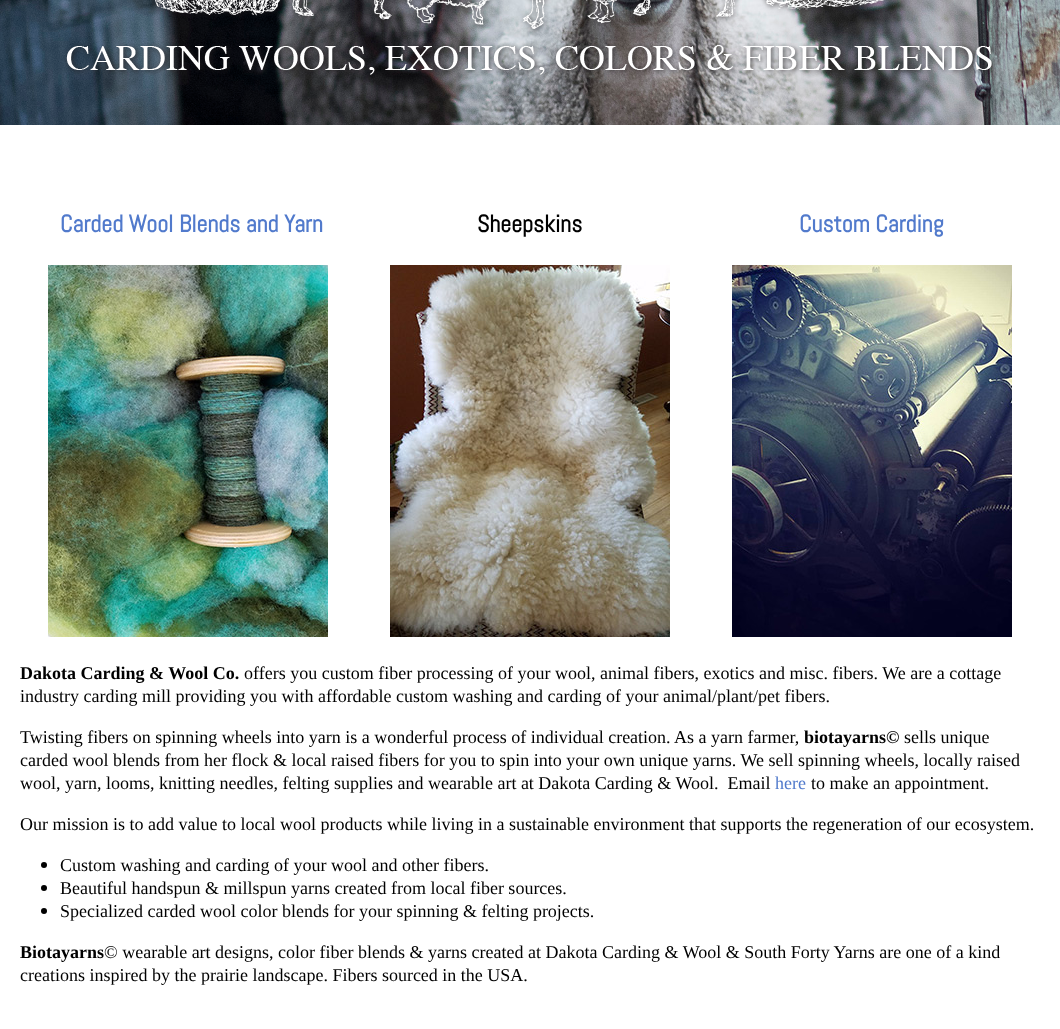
<svg xmlns="http://www.w3.org/2000/svg" width="1060" height="1029" viewBox="0 0 1060 1029">
  <rect width="100%" height="100%" fill="rgb(255,255,255)"/>
  <image x="0" y="0" width="1060" height="125" href="pic1.png"/>
  <image x="65" y="0" width="932" height="78" href="pic2.png"/>
  <text x="60" y="232" font-family="Abel" font-size="24" font-weight="bold" fill="rgb(81,122,204)">Carded Wool Blends and Yarn</text>
  <text x="477" y="232" font-family="Abel" font-size="24" font-weight="bold" fill="rgb(0,0,0)">Sheepskins</text>
  <text x="799" y="232" font-family="Abel" font-size="24" font-weight="bold" fill="rgb(81,122,204)">Custom Carding</text>
  <image x="48" y="265" width="280" height="372" href="pic3.png"/>
  <image x="390" y="265" width="280" height="372" href="pic4.png"/>
  <image x="732" y="265" width="280" height="372" href="pic5.png"/>
  <text x="20" y="679" font-family="Liberation Serif" font-size="18" font-weight="bold" fill="rgb(0,0,0)">Dakota Carding &amp; Wool Co.</text>
  <g font-family="Liberation Serif" font-size="18" fill="rgb(0,0,0)">
    <text x="244" y="679">offers you custom fiber processing of your wool, animal fibers, exotics and misc. fibers. We are a cottage</text>
    <text x="20" y="702">industry carding mill providing you with affordable custom washing and carding of your animal/plant/pet fibers.</text>
    <text x="20" y="743">Twisting fibers on spinning wheels into yarn is a wonderful process of individual creation. As a yarn farmer,</text>
  </g>
  <text x="804" y="743" font-family="Liberation Serif" font-size="18" font-weight="bold" fill="rgb(0,0,0)">biotayarns©</text>
  <g font-family="Liberation Serif" font-size="18" fill="rgb(0,0,0)">
    <text x="904" y="743">sells unique</text>
    <text xml:space="preserve"><tspan x="20" y="766">carded wool blends from her flock &amp; local raised fibers for you to spin into your own unique yarns. We sell spinning wheels, locally raised</tspan><tspan x="20" y="789">wool, yarn, looms, knitting needles, felting supplies and wearable art at Dakota Carding &amp; Wool.  Email</tspan></text>
  </g>
  <text x="775" y="789" font-family="Liberation Serif" font-size="18" fill="rgb(81,122,204)">here</text>
  <g font-family="Liberation Serif" font-size="18" fill="rgb(0,0,0)">
    <text x="811" y="789">to make an appointment.</text>
    <text x="20" y="830">Our mission is to add value to local wool products while living in a sustainable environment that supports the regeneration of our ecosystem.</text>
  </g>
  <circle cx="44" cy="865" r="3" fill="rgb(0,0,0)"/>
  <text x="60" y="871" font-family="Liberation Serif" font-size="18" fill="rgb(0,0,0)">Custom washing and carding of your wool and other fibers.</text>
  <circle cx="44" cy="888" r="3" fill="rgb(0,0,0)"/>
  <text x="60" y="894" font-family="Liberation Serif" font-size="18" fill="rgb(0,0,0)">Beautiful handspun &amp; millspun yarns created from local fiber sources.</text>
  <circle cx="44" cy="911" r="3" fill="rgb(0,0,0)"/>
  <text x="60" y="917" font-family="Liberation Serif" font-size="18" fill="rgb(0,0,0)">Specialized carded wool color blends for your spinning &amp; felting projects.</text>
  <text x="20" y="958" font-family="Liberation Serif" font-size="18" font-weight="bold" fill="rgb(0,0,0)">Biotayarns</text>
  <g font-family="Liberation Serif" font-size="18" fill="rgb(0,0,0)">
    <text x="104" y="958">© wearable art designs, color fiber blends &amp; yarns created at Dakota Carding &amp; Wool &amp; South Forty Yarns are one of a kind</text>
    <text x="20" y="981">creations inspired by the prairie landscape. Fibers sourced in the USA.</text>
  </g>
</svg>
